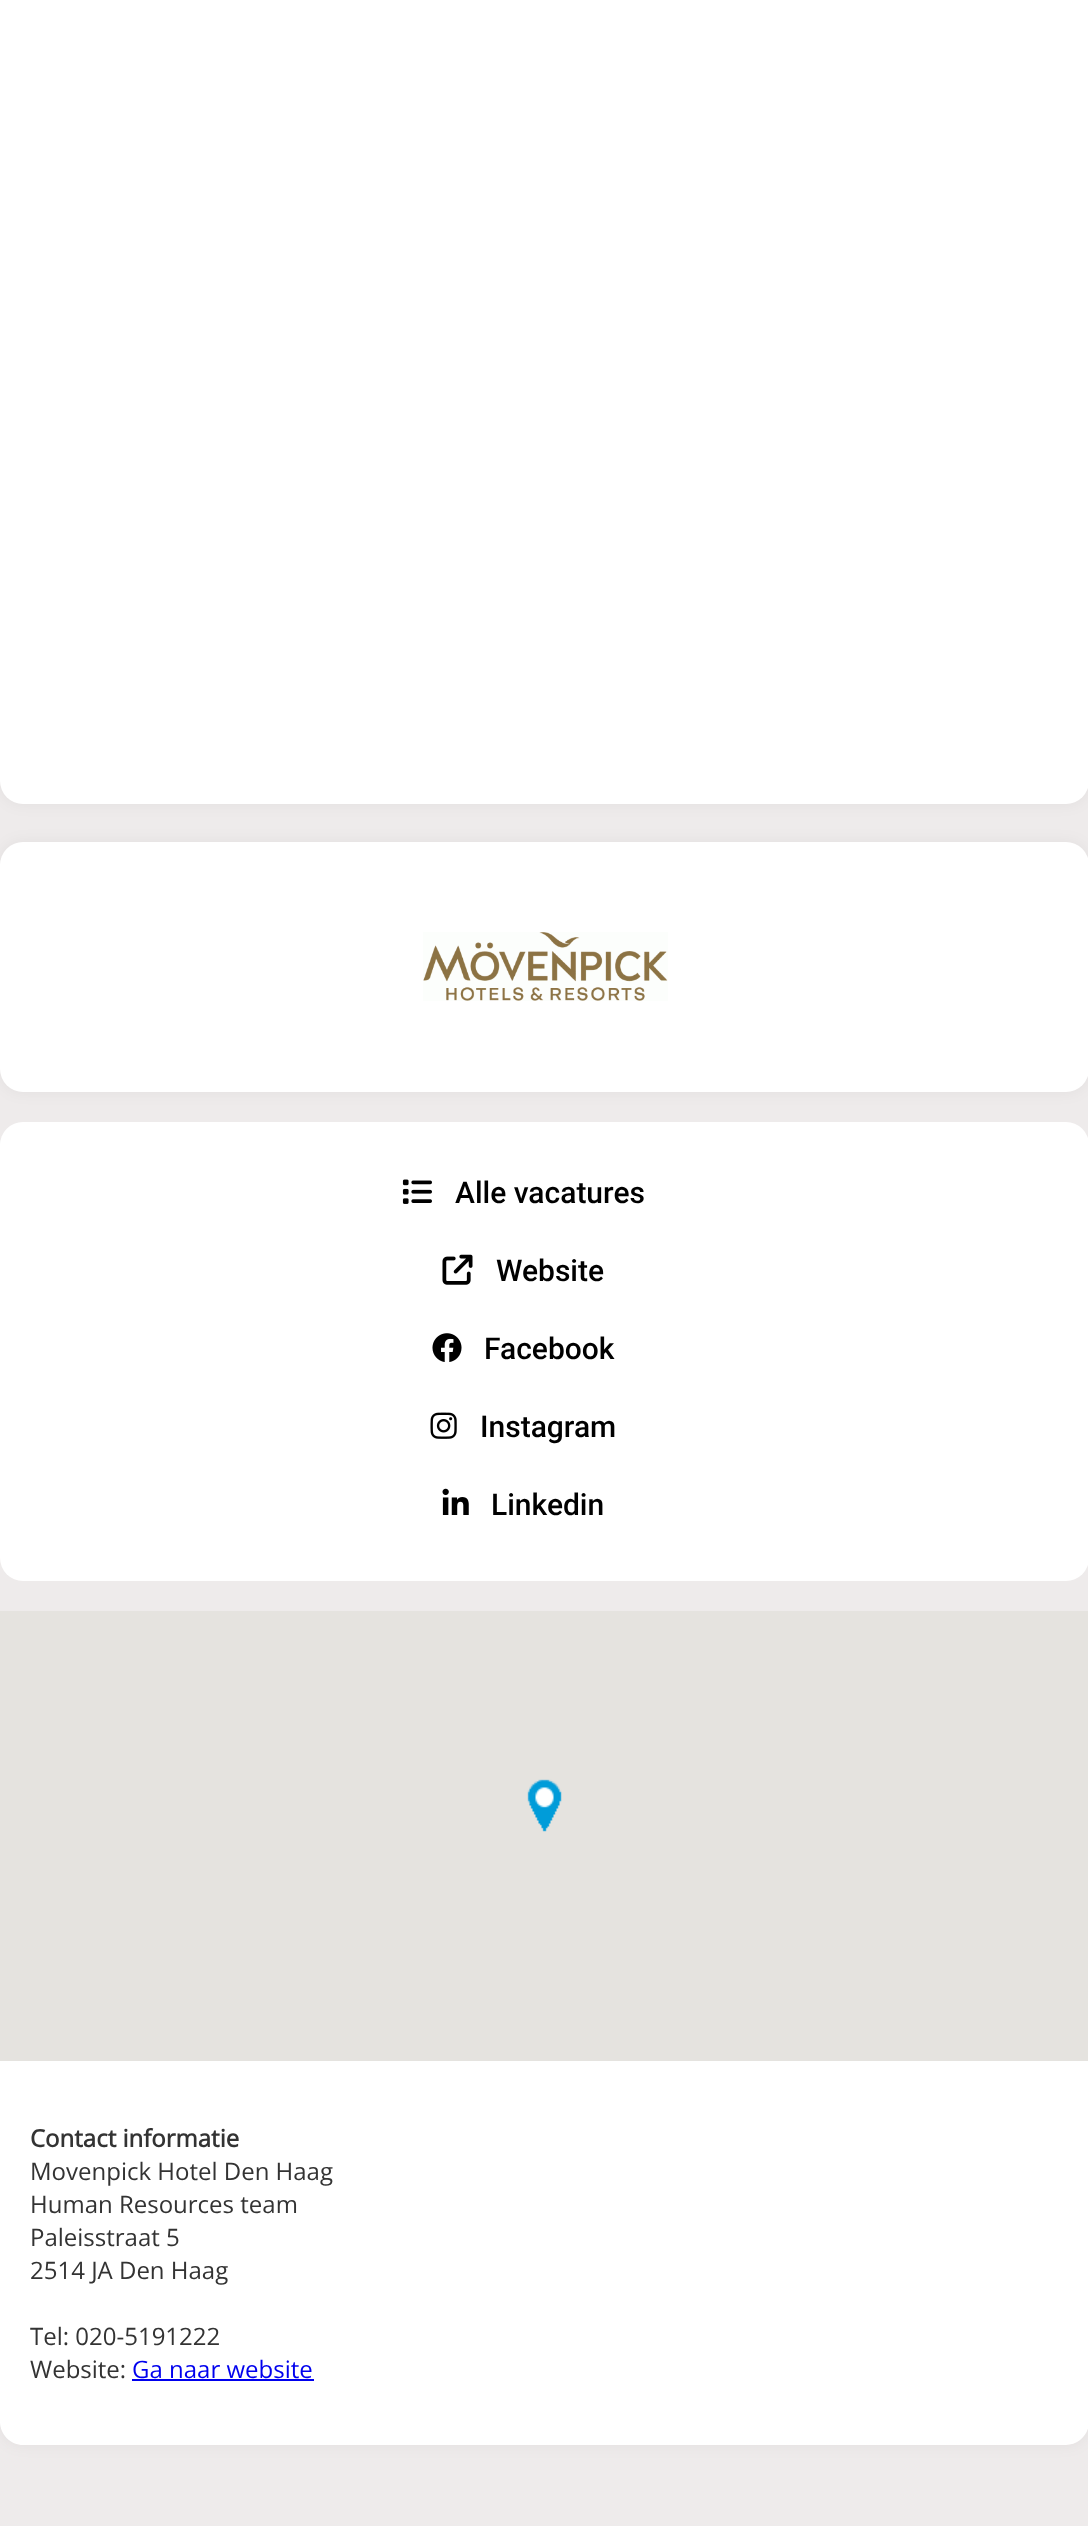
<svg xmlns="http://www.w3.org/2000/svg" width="1088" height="2526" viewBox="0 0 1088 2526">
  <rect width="100%" height="100%" fill="rgb(238,235,235)"/>
  <rect x="0" y="-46" width="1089" height="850" rx="23" fill="rgba(0,0,0,0.05)" filter="blur(7.5px)"/>
  <rect x="0" y="-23" width="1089" height="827" rx="23" fill="rgb(255,255,255)"/>
  <rect x="0" y="842" width="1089" height="250" rx="23" fill="rgba(0,0,0,0.05)" filter="blur(7.5px)"/>
  <rect x="0" y="842" width="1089" height="250" rx="23" fill="rgb(255,255,255)"/>
  <image x="423" y="932" width="245" height="69" href="pic1.png"/>
  <rect x="0" y="1122" width="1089" height="459" rx="23" fill="rgb(255,255,255)"/>
  <image x="402" y="1179" width="30" height="25" href="pic2.png"/>
  <text x="455" y="1203" font-family="Roboto" font-size="30" font-weight="500" fill="rgb(0,0,0)">Alle vacatures</text>
  <image x="442" y="1254" width="31" height="31" href="pic3.png"/>
  <text x="496" y="1281" font-family="Roboto" font-size="30" font-weight="500" fill="rgb(0,0,0)">Website</text>
  <image x="432" y="1333" width="30" height="29" href="pic4.png"/>
  <text x="484" y="1359" font-family="Roboto" font-size="30" font-weight="500" fill="rgb(0,0,0)">Facebook</text>
  <image x="430" y="1412" width="27" height="27" href="pic5.png"/>
  <text x="480" y="1437" font-family="Roboto" font-size="30" font-weight="500" fill="rgb(0,0,0)">Instagram</text>
  <image x="442" y="1488" width="27" height="27" href="pic6.png"/>
  <text x="491" y="1515" font-family="Roboto" font-size="30" font-weight="500" fill="rgb(0,0,0)">Linkedin</text>
  <rect x="0" y="2061" width="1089" height="384" rx="23" fill="rgba(0,0,0,0.05)" filter="blur(7.5px)"/>
  <rect x="0" y="1611" width="1088" height="450" fill="rgb(229,227,223)"/>
  <image x="527" y="1779" width="35" height="53" href="pic7.png"/>
  <path d="M0 2061H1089V2422C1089 2434.5 1078.5 2445 1066 2445H23C10.5 2445 0 2434.5 0 2422Z" fill="rgb(255,255,255)"/>
  <text x="30" y="2147" font-family="Open Sans" font-size="24" font-weight="bold" fill="rgb(51,51,51)">Contact informatie</text>
  <g font-family="Open Sans" font-size="24" fill="rgb(51,51,51)">
    <text>
      <tspan x="30" y="2180">Movenpick Hotel Den Haag</tspan>
      <tspan x="30" y="2213">Human Resources team</tspan>
      <tspan x="30" y="2246">Paleisstraat 5</tspan>
      <tspan x="30" y="2279">2514 JA Den Haag</tspan>
    </text>
    <text>
      <tspan x="30" y="2345">Tel: 020-5191222</tspan>
      <tspan x="30" y="2378">Website:</tspan>
    </text>
  </g>
  <text x="132" y="2378" font-family="Open Sans" font-size="24" fill="rgb(0,0,238)">Ga naar website</text>
  <rect x="132" y="2379" width="182" height="2" fill="rgb(0,0,238)"/>
</svg>
